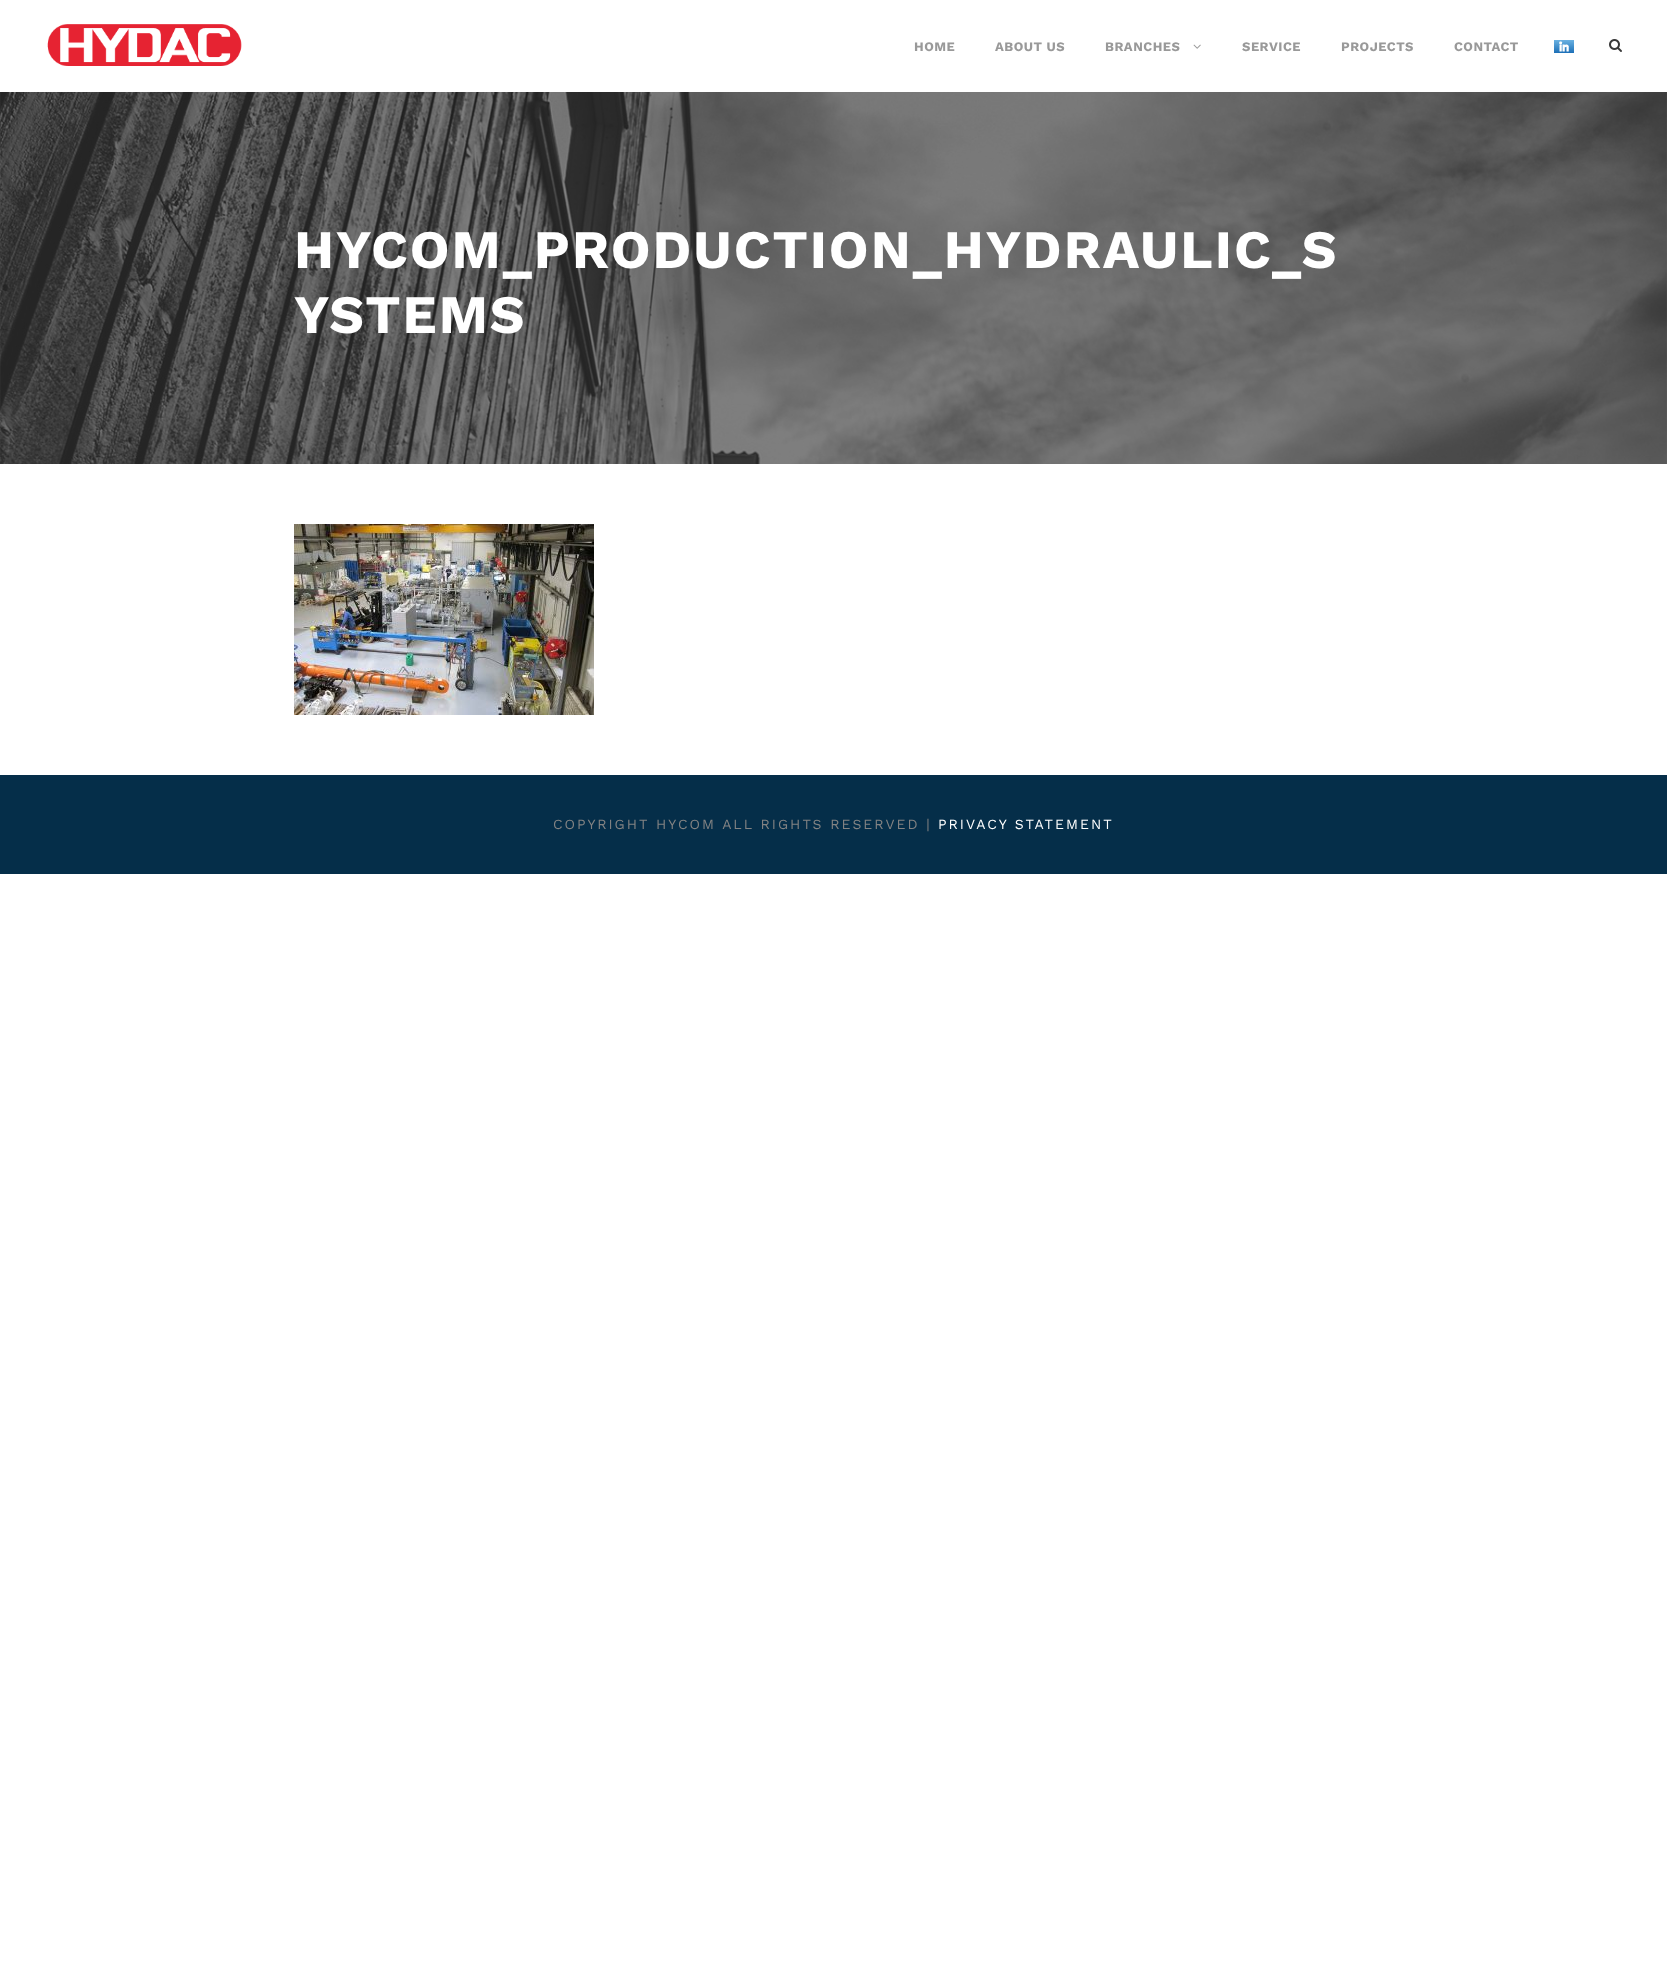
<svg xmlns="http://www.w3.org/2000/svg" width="1667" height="1966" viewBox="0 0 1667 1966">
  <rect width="100%" height="100%" fill="rgb(255,255,255)"/>
  <image x="47" y="24" width="195" height="42" href="pic1.png"/>
  <g font-family="Work Sans" font-size="13" font-weight="bold" letter-spacing="0.5" fill="rgb(153,153,153)">
    <text x="914" y="51">HOME</text>
    <text x="995" y="51">ABOUT US</text>
    <text x="1105" y="51">BRANCHES</text>
  </g>
  <image x="1193" y="44" width="8" height="5" href="pic2.png"/>
  <g font-family="Work Sans" font-size="13" font-weight="bold" letter-spacing="0.5" fill="rgb(153,153,153)">
    <text x="1242" y="51">SERVICE</text>
    <text x="1341" y="51">PROJECTS</text>
    <text x="1454" y="51">CONTACT</text>
  </g>
  <image x="1554" y="40" width="20" height="13" href="pic3.png"/>
  <image x="1609" y="39" width="13" height="13" href="pic4.png"/>
  <image x="0" y="92" width="1667" height="372" href="pic5.png"/>
  <g font-family="Work Sans" font-size="54" font-weight="bold" letter-spacing="2" fill="rgb(255,255,255)">
    <text>
      <tspan x="294" y="268">HYCOM_PRODUCTION_HYDRAULIC_S</tspan>
      <tspan x="294" y="333">YSTEMS</tspan>
    </text>
  </g>
  <image x="294" y="524" width="300" height="191" href="pic6.png"/>
  <rect x="0" y="775" width="1667" height="99" fill="rgb(5,46,73)"/>
  <text x="553" y="829" font-family="Work Sans" font-size="14" letter-spacing="2" fill="rgb(131,131,131)">COPYRIGHT HYCOM ALL RIGHTS RESERVED |</text>
  <text x="938" y="829" font-family="Work Sans" font-size="14" letter-spacing="2" fill="rgb(255,255,255)">PRIVACY STATEMENT</text>
</svg>
